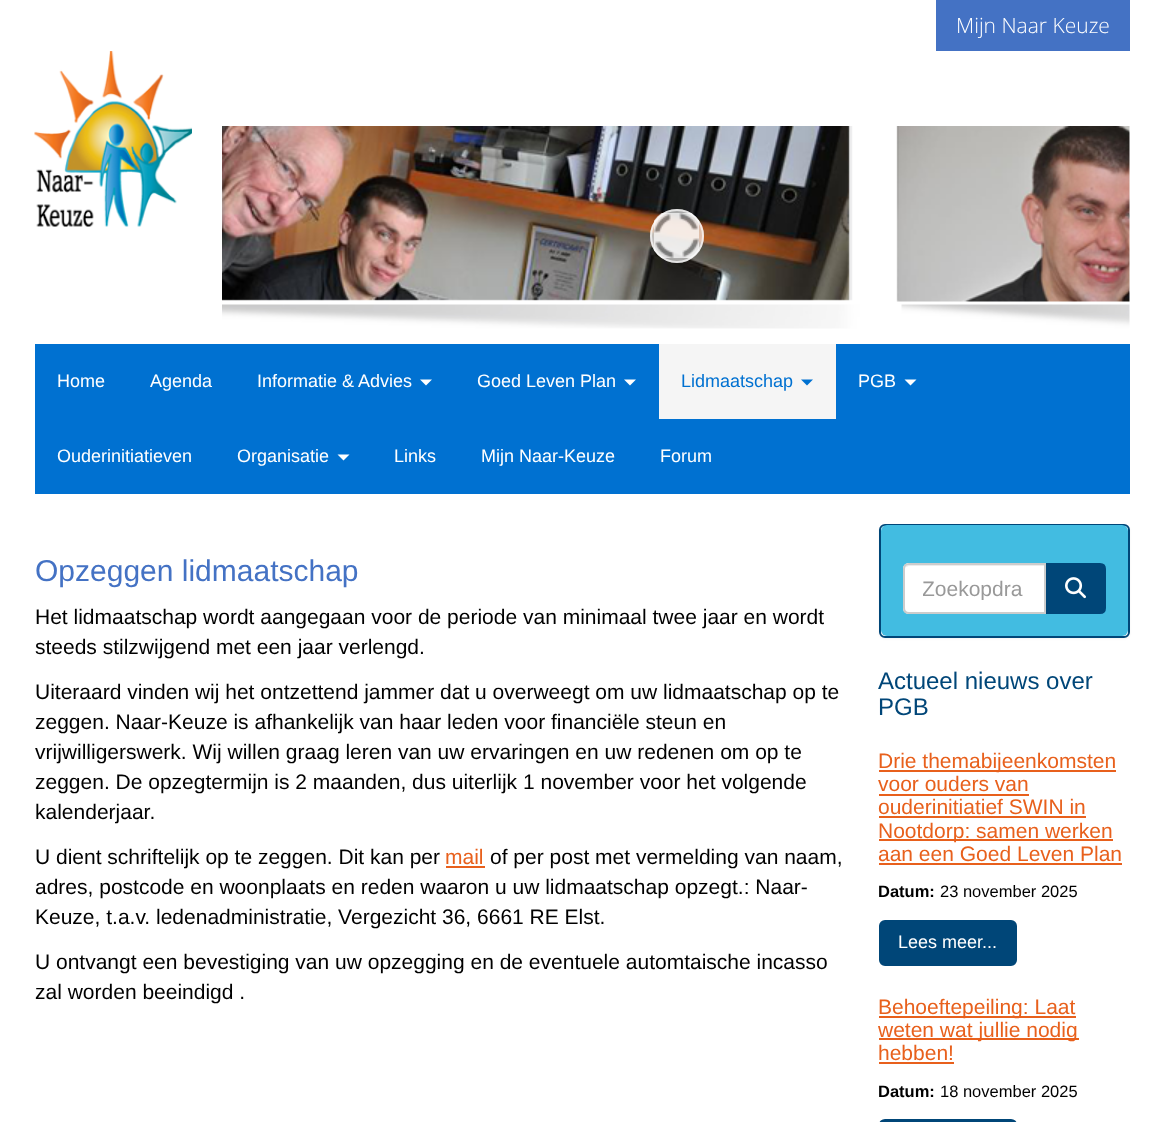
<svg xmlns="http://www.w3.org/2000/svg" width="1164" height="1122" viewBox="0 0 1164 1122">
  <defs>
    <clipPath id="clip1"><rect x="923" y="576" width="103" height="24"/></clipPath>
  </defs>
  <rect width="100%" height="100%" fill="rgb(255,255,255)"/>
  <rect x="936" y="0" width="194" height="51" fill="rgb(68,114,196)"/>
  <text x="956" y="33" font-family="Open Sans" font-size="21" font-weight="300" fill="rgb(255,255,255)">Mijn Naar Keuze</text>
  <image x="34" y="51" width="158" height="176" href="pic1.png"/>
  <image x="222" y="126" width="908" height="203" href="pic2.png"/>
  <circle cx="677" cy="236" r="27" fill="rgba(255,255,255,0.62)"/>
  <image x="654" y="213" width="45" height="45" href="pic3.png"/>
  <circle cx="677" cy="236" r="26" fill="none" stroke="rgba(255,255,255,0.68)" stroke-width="2"/>
  <rect x="35" y="344" width="1095" height="150" fill="rgb(0,113,209)"/>
  <g font-family="Liberation Sans" font-size="18" fill="rgb(255,255,255)">
    <text x="57" y="387">Home</text>
    <text x="150" y="387">Agenda</text>
    <text x="257" y="387">Informatie &amp; Advies</text>
  </g>
  <path d="M420 379.5H432L426 385.5Z" fill="rgb(255,255,255)"/>
  <text x="477" y="387" font-family="Liberation Sans" font-size="18" fill="rgb(255,255,255)">Goed Leven Plan</text>
  <path d="M624 379.5H636L630 385.5Z" fill="rgb(255,255,255)"/>
  <rect x="659" y="344" width="177" height="75" fill="rgb(245,245,245)"/>
  <text x="681" y="387" font-family="Liberation Sans" font-size="18" fill="rgb(0,113,209)">Lidmaatschap</text>
  <path d="M801 379.5H813L807 385.5Z" fill="rgb(0,113,209)"/>
  <text x="858" y="387" font-family="Liberation Sans" font-size="18" fill="rgb(255,255,255)">PGB</text>
  <path d="M904.5 379.5H916.5L910.5 385.5Z" fill="rgb(255,255,255)"/>
  <g font-family="Liberation Sans" font-size="18" fill="rgb(255,255,255)">
    <text x="57" y="462">Ouderinitiatieven</text>
    <text x="237" y="462">Organisatie</text>
  </g>
  <path d="M337.5 454.5H349.5L343.5 460.5Z" fill="rgb(255,255,255)"/>
  <g font-family="Liberation Sans" font-size="18" fill="rgb(255,255,255)">
    <text x="394" y="462">Links</text>
    <text x="481" y="462">Mijn Naar-Keuze</text>
    <text x="660" y="462">Forum</text>
  </g>
  <text x="35" y="581" font-family="Liberation Sans" font-size="30" fill="rgb(68,114,196)">Opzeggen lidmaatschap</text>
  <g font-family="Liberation Sans" font-size="21" fill="rgb(0,0,0)">
    <text>
      <tspan x="35" y="624">Het lidmaatschap wordt aangegaan voor de periode van minimaal twee jaar en wordt</tspan>
      <tspan x="35" y="654">steeds stilzwijgend met een jaar verlengd.</tspan>
    </text>
    <text>
      <tspan x="35" y="699">Uiteraard vinden wij het ontzettend jammer dat u overweegt om uw lidmaatschap op te</tspan>
      <tspan x="35" y="729">zeggen. Naar-Keuze is afhankelijk van haar leden voor financiële steun en</tspan>
      <tspan x="35" y="759">vrijwilligerswerk. Wij willen graag leren van uw ervaringen en uw redenen om op te</tspan>
      <tspan x="35" y="789">zeggen. De opzegtermijn is 2 maanden, dus uiterlijk 1 november voor het volgende</tspan>
      <tspan x="35" y="819">kalenderjaar.</tspan>
    </text>
    <text x="35" y="864">U dient schriftelijk op te zeggen. Dit kan per</text>
  </g>
  <text x="445" y="864" font-family="Liberation Sans" font-size="21" fill="rgb(232,96,28)">mail</text>
  <rect x="446" y="866" width="39" height="2" fill="rgb(232,96,28)"/>
  <g font-family="Liberation Sans" font-size="21" fill="rgb(0,0,0)">
    <text x="490" y="864">of per post met vermelding van naam,</text>
    <text>
      <tspan x="35" y="894">adres, postcode en woonplaats en reden waaron u uw lidmaatschap opzegt.: Naar-</tspan>
      <tspan x="35" y="924">Keuze, t.a.v. ledenadministratie, Vergezicht 36, 6661 RE Elst.</tspan>
    </text>
    <text>
      <tspan x="35" y="969">U ontvangt een bevestiging van uw opzegging en de eventuele automtaische incasso</tspan>
      <tspan x="35" y="999">zal worden beeindigd .</tspan>
    </text>
  </g>
  <rect x="879" y="525" width="251" height="114" rx="6" fill="rgba(0,0,0,0.05)" filter="blur(1px)"/>
  <rect x="880" y="525" width="249" height="112" rx="5" fill="rgb(255,255,255)" stroke="rgb(0,70,120)" stroke-width="2"/>
  <rect x="881" y="525" width="247" height="111" rx="6" fill="rgb(66,188,225)"/>
  <path d="M909 563H1046V614H909C905.5 614 903 611.5 903 608V569C903 565.5 905.5 563 909 563Z" fill="rgb(255,255,255)"/>
  <path d="M909 566H1044V564H910C908 564 906 566 905 568C906 567 908 566 909 566Z" fill="rgb(236,236,236)"/>
  <path d="M909 564H1045V613H909C906 613 904 611 904 608V569C904 566 906 564 909 564Z" fill="none" stroke="rgb(204,204,204)" stroke-width="2"/>
  <g clip-path="url(#clip1)">
    <text x="922" y="596" font-family="Liberation Sans" font-size="21" fill="rgb(153,153,153)">Zoekopdra</text>
  </g>
  <path d="M1047 564H1100C1103 564 1105 566 1105 569V608C1105 611 1103 613 1100 613H1047Z" fill="rgb(0,70,120)" stroke="rgb(0,70,120)" stroke-width="2"/>
  <image x="1065" y="577" width="21" height="22" href="pic4.png"/>
  <g font-family="Liberation Sans" font-size="24" fill="rgb(0,70,120)">
    <text>
      <tspan x="878" y="689">Actueel nieuws over</tspan>
      <tspan x="878" y="715">PGB</tspan>
    </text>
  </g>
  <rect x="879" y="770" width="237" height="2" fill="rgb(232,96,28)"/>
  <g font-family="Liberation Sans" font-size="21" fill="rgb(232,96,28)">
    <text>
      <tspan x="878" y="768">Drie themabijeenkomsten</tspan>
      <tspan x="878" y="791">voor ouders van</tspan>
    </text>
  </g>
  <rect x="879" y="794" width="150" height="2" fill="rgb(232,96,28)"/>
  <text x="878" y="814" font-family="Liberation Sans" font-size="21" fill="rgb(232,96,28)">ouderinitiatief SWIN in</text>
  <rect x="879" y="816" width="207" height="2" fill="rgb(232,96,28)"/>
  <rect x="879" y="839" width="234" height="2" fill="rgb(232,96,28)"/>
  <g font-family="Liberation Sans" font-size="21" fill="rgb(232,96,28)">
    <text>
      <tspan x="878" y="838">Nootdorp: samen werken</tspan>
      <tspan x="878" y="861">aan een Goed Leven Plan</tspan>
    </text>
  </g>
  <rect x="879" y="863" width="243" height="2" fill="rgb(232,96,28)"/>
  <text x="878" y="897" font-family="Liberation Sans" font-size="16.5" font-weight="bold" fill="rgb(0,0,0)">Datum:</text>
  <text x="940" y="897" font-family="Liberation Sans" font-size="16.5" fill="rgb(0,0,0)">23 november 2025</text>
  <rect x="880" y="921" width="136" height="44" rx="5" fill="rgb(0,70,120)" stroke="rgb(0,70,120)" stroke-width="2"/>
  <text x="898" y="948" font-family="Liberation Sans" font-size="18" fill="rgb(255,255,255)">Lees meer...</text>
  <rect x="879" y="1016" width="197" height="2" fill="rgb(232,96,28)"/>
  <text x="878" y="1014" font-family="Liberation Sans" font-size="21" fill="rgb(232,96,28)">Behoeftepeiling: Laat</text>
  <rect x="879" y="1038" width="200" height="2" fill="rgb(232,96,28)"/>
  <g font-family="Liberation Sans" font-size="21" fill="rgb(232,96,28)">
    <text>
      <tspan x="878" y="1037">weten wat jullie nodig</tspan>
      <tspan x="878" y="1060">hebben!</tspan>
    </text>
  </g>
  <rect x="879" y="1062" width="75" height="2" fill="rgb(232,96,28)"/>
  <text x="878" y="1097" font-family="Liberation Sans" font-size="16.5" font-weight="bold" fill="rgb(0,0,0)">Datum:</text>
  <text x="940" y="1097" font-family="Liberation Sans" font-size="16.5" fill="rgb(0,0,0)">18 november 2025</text>
  <rect x="880" y="1120" width="136" height="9" rx="5" fill="rgb(0,70,120)" stroke="rgb(0,70,120)" stroke-width="2"/>
</svg>
